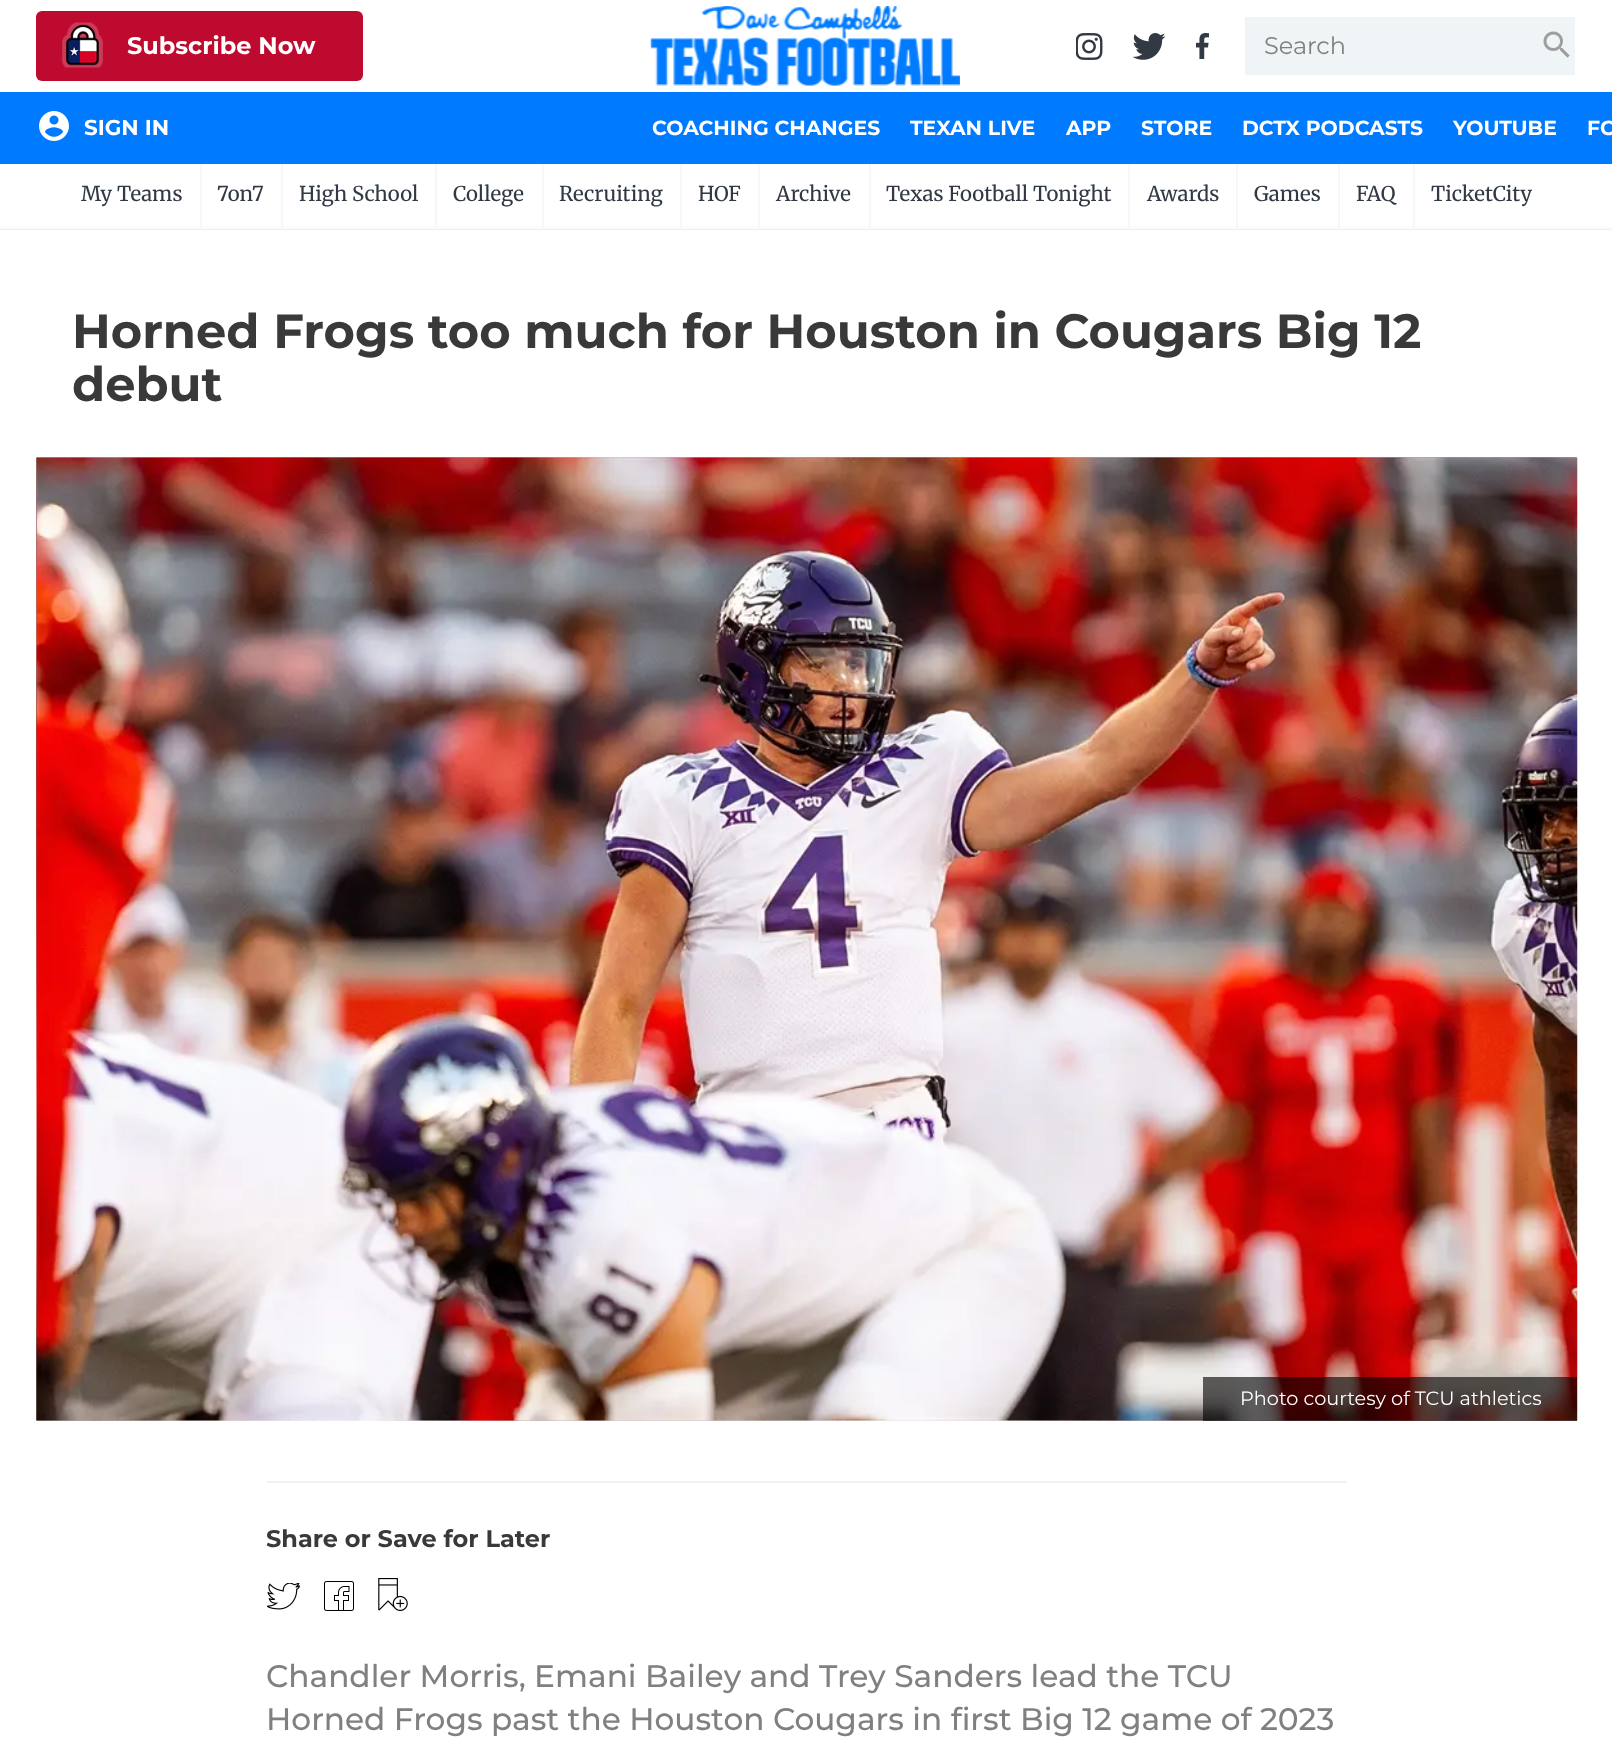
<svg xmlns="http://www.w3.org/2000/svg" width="1612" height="1741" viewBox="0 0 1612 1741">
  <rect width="100%" height="100%" fill="rgb(255,255,255)"/>
  <path d="M0 228V230H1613V2H1612V228Z" fill="rgb(240,240,240)"/>
  <rect x="0" y="227" width="1612" height="2" fill="rgb(250,250,250)"/>
  <rect x="36" y="11" width="327" height="70" rx="6" fill="rgb(191,10,48)"/>
  <image x="62" y="22" width="41" height="46" href="pic1.png"/>
  <text x="127" y="54" font-family="Montserrat" font-size="24" font-weight="bold" fill="rgb(255,255,255)">Subscribe Now</text>
  <image x="650" y="6" width="310" height="80" href="pic2.png"/>
  <image x="1076" y="33" width="27" height="27" href="pic3.png"/>
  <image x="1133" y="33" width="33" height="27" href="pic4.png"/>
  <image x="1196" y="33" width="13" height="26" href="pic5.png"/>
  <rect x="1245" y="17" width="330" height="58" fill="rgb(239,244,246)"/>
  <text x="1264" y="54" font-family="Montserrat" font-size="24" fill="rgb(128,128,128)">Search</text>
  <image x="1543" y="31" width="27" height="27" href="pic6.png"/>
  <rect x="0" y="92" width="1612" height="72" fill="rgb(0,123,255)"/>
  <image x="39" y="111" width="30" height="30" href="pic7.png"/>
  <text x="84" y="135" font-family="Montserrat" font-size="21.5" font-weight="bold" fill="rgb(255,255,255)">SIGN IN</text>
  <g font-family="Montserrat" font-size="20.4" font-weight="bold" fill="rgb(255,255,255)">
    <text x="652" y="135">COACHING CHANGES</text>
    <text x="910" y="135">TEXAN LIVE</text>
    <text x="1066" y="135">APP</text>
    <text x="1141" y="135">STORE</text>
    <text x="1242" y="135">DCTX PODCASTS</text>
    <text x="1453" y="135">YOUTUBE</text>
    <text x="1587" y="135">FO</text>
  </g>
  <rect x="200" y="164" width="2" height="63" fill="rgb(247,247,247)"/>
  <text x="81" y="201" font-family="Merriweather" font-size="20.4" fill="rgb(49,57,68)">My Teams</text>
  <rect x="281" y="164" width="2" height="63" fill="rgb(247,247,247)"/>
  <text x="217" y="201" font-family="Merriweather" font-size="20.4" fill="rgb(49,57,68)">7on7</text>
  <rect x="435" y="164" width="2" height="63" fill="rgb(247,247,247)"/>
  <text x="299" y="201" font-family="Merriweather" font-size="20.4" fill="rgb(49,57,68)">High School</text>
  <rect x="542" y="164" width="2" height="63" fill="rgb(247,247,247)"/>
  <text x="453" y="201" font-family="Merriweather" font-size="20.4" fill="rgb(49,57,68)">College</text>
  <rect x="680" y="164" width="2" height="63" fill="rgb(247,247,247)"/>
  <text x="559" y="201" font-family="Merriweather" font-size="20.4" fill="rgb(49,57,68)">Recruiting</text>
  <rect x="758" y="164" width="2" height="63" fill="rgb(247,247,247)"/>
  <text x="698" y="201" font-family="Merriweather" font-size="20.4" fill="rgb(49,57,68)">HOF</text>
  <rect x="869" y="164" width="2" height="63" fill="rgb(247,247,247)"/>
  <text x="776" y="201" font-family="Merriweather" font-size="20.4" fill="rgb(49,57,68)">Archive</text>
  <rect x="1128" y="164" width="2" height="63" fill="rgb(247,247,247)"/>
  <text x="886" y="201" font-family="Merriweather" font-size="20.4" fill="rgb(49,57,68)">Texas Football Tonight</text>
  <rect x="1236" y="164" width="2" height="63" fill="rgb(247,247,247)"/>
  <text x="1147" y="201" font-family="Merriweather" font-size="20.4" fill="rgb(49,57,68)">Awards</text>
  <rect x="1338" y="164" width="2" height="63" fill="rgb(247,247,247)"/>
  <text x="1254" y="201" font-family="Merriweather" font-size="20.4" fill="rgb(49,57,68)">Games</text>
  <rect x="1413" y="164" width="2" height="63" fill="rgb(247,247,247)"/>
  <g font-family="Merriweather" font-size="20.4" fill="rgb(49,57,68)">
    <text x="1356" y="201">FAQ</text>
    <text x="1431" y="201">TicketCity</text>
  </g>
  <g font-family="Montserrat" font-size="48" font-weight="bold" fill="rgb(57,57,57)">
    <text>
      <tspan x="72" y="348">Horned Frogs too much for Houston in Cougars Big 12</tspan>
      <tspan x="72" y="401">debut</tspan>
    </text>
  </g>
  <image x="36" y="457" width="1541" height="964" href="pic8.png"/>
  <image x="36" y="457" width="1542" height="964" href="pic9.png"/>
  <rect x="1203" y="1377" width="374" height="44" fill="rgba(0,0,0,0.62)"/>
  <text x="1240" y="1405" font-family="Montserrat" font-size="19.25" fill="rgb(255,255,255)">Photo courtesy of TCU athletics</text>
  <rect x="267" y="1481" width="1080" height="2" fill="rgb(241,241,241)"/>
  <text x="266" y="1547" font-family="Montserrat" font-size="24" font-weight="bold" fill="rgb(57,57,57)">Share or Save for Later</text>
  <image x="267" y="1583" width="33" height="27" href="pic10.png"/>
  <image x="324" y="1581" width="30" height="30" href="pic11.png"/>
  <image x="378" y="1578" width="30" height="33" href="pic12.png"/>
  <g font-family="Montserrat" font-size="31.2" font-weight="500" fill="rgb(128,128,128)">
    <text>
      <tspan x="266" y="1687">Chandler Morris, Emani Bailey and Trey Sanders lead the TCU</tspan>
      <tspan x="266" y="1730">Horned Frogs past the Houston Cougars in first Big 12 game of 2023</tspan>
    </text>
  </g>
</svg>
